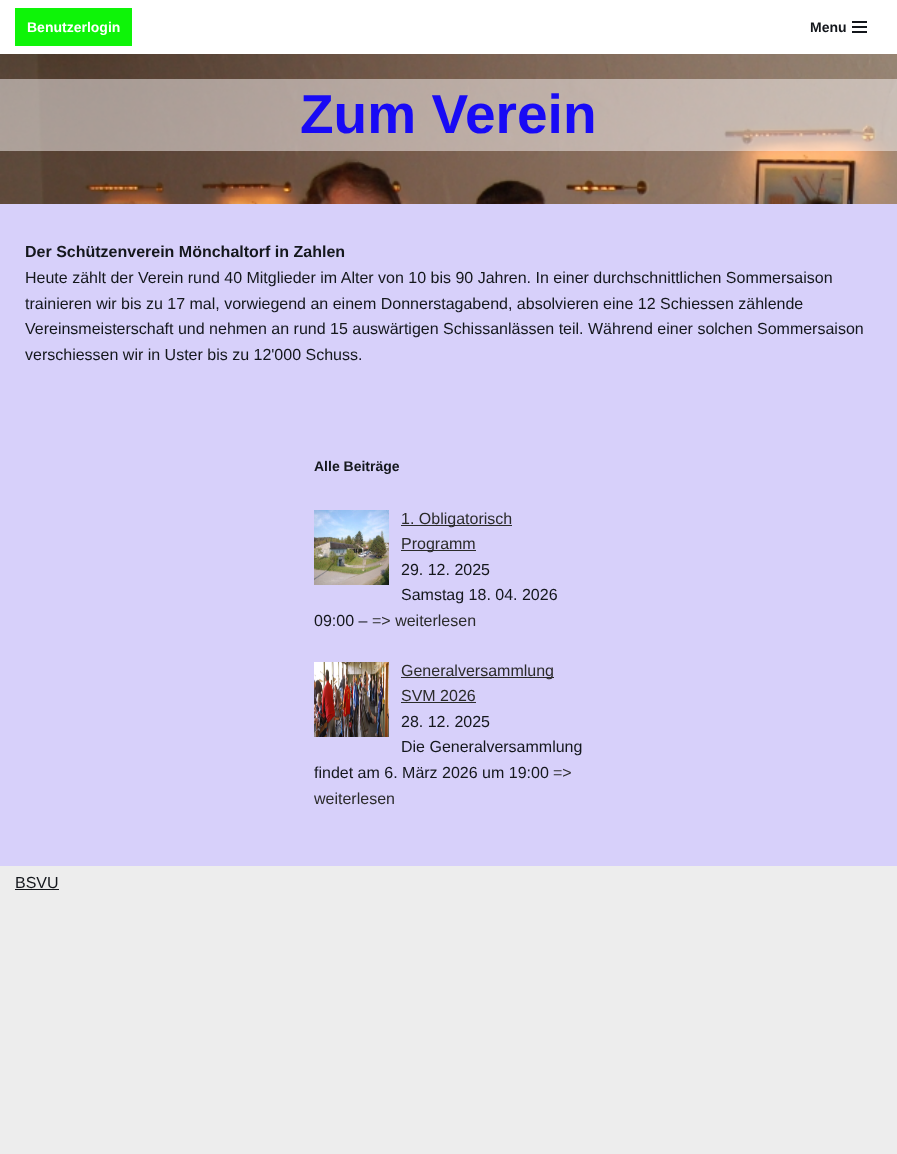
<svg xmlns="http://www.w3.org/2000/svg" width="897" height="1154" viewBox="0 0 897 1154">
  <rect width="100%" height="100%" fill="rgb(255,255,255)"/>
  <rect x="15" y="8" width="117" height="38" fill="rgb(14,244,8)"/>
  <text x="27" y="32" font-family="Liberation Sans" font-size="14" font-weight="bold" fill="rgb(255,255,255)">Benutzerlogin</text>
  <text x="810" y="32" font-family="Liberation Sans" font-size="14" font-weight="bold" fill="rgb(20,23,28)">Menu</text>
  <rect x="852" y="21" width="15" height="2" fill="rgb(20,23,28)"/>
  <rect x="852" y="26" width="15" height="2" fill="rgb(20,23,28)"/>
  <rect x="852" y="31" width="15" height="2" fill="rgb(20,23,28)"/>
  <image x="0" y="54" width="897" height="150" href="pic1.png"/>
  <rect x="0" y="79" width="897" height="72" fill="rgba(247,242,242,0.52)"/>
  <text x="300" y="133" font-family="Liberation Sans" font-size="55" font-weight="bold" fill="rgb(24,10,245)">Zum Verein</text>
  <rect x="0" y="204" width="897" height="662" fill="rgb(215,208,250)"/>
  <text x="25" y="257" font-family="Liberation Sans" font-size="16" font-weight="bold" fill="rgb(20,23,28)">Der Schützenverein Mönchaltorf in Zahlen</text>
  <g font-family="Liberation Sans" font-size="16" fill="rgb(20,23,28)">
    <text>
      <tspan x="25" y="283">Heute zählt der Verein rund 40 Mitglieder im Alter von 10 bis 90 Jahren. In einer durchschnittlichen Sommersaison</tspan>
      <tspan x="25" y="309">trainieren wir bis zu 17 mal, vorwiegend an einem Donnerstagabend, absolvieren eine 12 Schiessen zählende</tspan>
      <tspan x="25" y="334">Vereinsmeisterschaft und nehmen an rund 15 auswärtigen Schissanlässen teil. Während einer solchen Sommersaison</tspan>
      <tspan x="25" y="360">verschiessen wir in Uster bis zu 12'000 Schuss.</tspan>
    </text>
  </g>
  <text x="314" y="471" font-family="Liberation Sans" font-size="14" font-weight="bold" fill="rgb(20,23,28)">Alle Beiträge</text>
  <image x="314" y="510" width="75" height="75" href="pic2.png"/>
  <rect x="401" y="525" width="111" height="1" fill="rgb(43,43,43)"/>
  <text x="401" y="524" font-family="Liberation Sans" font-size="16" fill="rgb(43,43,43)">1. Obligatorisch</text>
  <rect x="401" y="550" width="75" height="1" fill="rgb(43,43,43)"/>
  <text x="401" y="549" font-family="Liberation Sans" font-size="16" fill="rgb(43,43,43)">Programm</text>
  <g font-family="Liberation Sans" font-size="16" fill="rgb(20,23,28)">
    <text>
      <tspan x="401" y="575">29. 12. 2025</tspan>
      <tspan x="401" y="600">Samstag 18. 04. 2026</tspan>
    </text>
    <text x="314" y="626">09:00 –</text>
  </g>
  <text x="372" y="626" font-family="Liberation Sans" font-size="16" fill="rgb(43,43,43)">=&gt; weiterlesen</text>
  <image x="314" y="662" width="75" height="75" href="pic3.png"/>
  <rect x="401" y="677" width="153" height="1" fill="rgb(43,43,43)"/>
  <g font-family="Liberation Sans" font-size="16" fill="rgb(43,43,43)">
    <text>
      <tspan x="401" y="676">Generalversammlung</tspan>
      <tspan x="401" y="701">SVM 2026</tspan>
    </text>
  </g>
  <rect x="401" y="702" width="75" height="1" fill="rgb(43,43,43)"/>
  <g font-family="Liberation Sans" font-size="16" fill="rgb(20,23,28)">
    <text>
      <tspan x="401" y="727">28. 12. 2025</tspan>
      <tspan x="401" y="752">Die Generalversammlung</tspan>
    </text>
    <text x="314" y="778">findet am 6. März 2026 um 19:00</text>
  </g>
  <g font-family="Liberation Sans" font-size="16" fill="rgb(43,43,43)">
    <text x="553" y="778">=&gt;</text>
    <text x="314" y="804">weiterlesen</text>
  </g>
  <rect x="0" y="866" width="897" height="288" fill="rgb(237,237,237)"/>
  <text x="15" y="888" font-family="Liberation Sans" font-size="16" fill="rgb(20,23,28)">BSVU</text>
  <rect x="15" y="889" width="44" height="1" fill="rgb(20,23,28)"/>
</svg>
